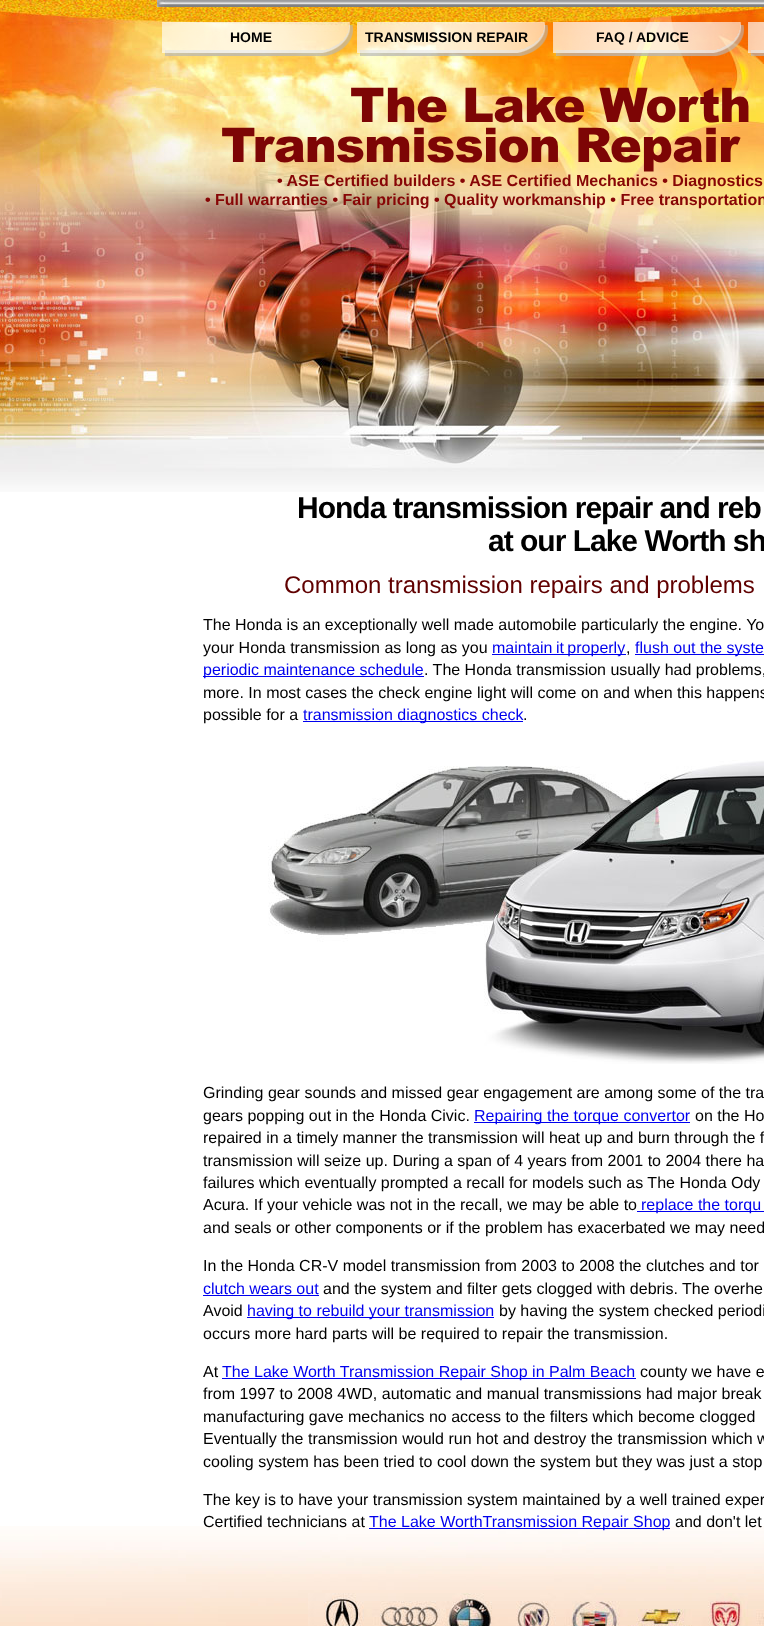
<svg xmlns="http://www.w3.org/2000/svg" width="764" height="1626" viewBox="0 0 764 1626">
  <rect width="100%" height="100%" fill="rgb(255,255,255)"/>
  <image x="0" y="0" width="764" height="492" href="pic1.png"/>
  <image x="157" y="0" width="607" height="7" href="pic2.png"/>
  <image x="162" y="22" width="191" height="34" href="pic3.png"/>
  <text x="230" y="42" font-family="Liberation Sans" font-size="14" font-weight="bold" fill="rgb(0,0,0)">HOME</text>
  <image x="357" y="22" width="191" height="34" href="pic4.png"/>
  <text x="365" y="42" font-family="Liberation Sans" font-size="14" font-weight="bold" fill="rgb(0,0,0)">TRANSMISSION REPAIR</text>
  <image x="553" y="22" width="191" height="34" href="pic5.png"/>
  <text x="596" y="42" font-family="Liberation Sans" font-size="14" font-weight="bold" fill="rgb(0,0,0)">FAQ / ADVICE</text>
  <image x="748" y="22" width="16" height="34" href="pic6.png"/>
  <g font-family="Arial" font-size="48" font-weight="900" letter-spacing="-1" fill="rgb(125,5,5)">
    <text x="350" y="122">The Lake Worth</text>
    <text x="221" y="162">Transmission Repair</text>
  </g>
  <g font-family="Liberation Sans" font-size="16" font-weight="bold" fill="rgb(135,6,6)">
    <text x="277" y="186">• ASE Certified builders • ASE Certified Mechanics • Diagnostics</text>
    <text x="205" y="205">• Full warranties • Fair pricing • Quality workmanship • Free transportation</text>
  </g>
  <g font-family="Liberation Sans" font-size="30" font-weight="bold" letter-spacing="-1" fill="rgb(0,0,0)">
    <text x="297" y="518">Honda transmission repair and reb</text>
    <text x="488" y="551">at our Lake Worth sh</text>
  </g>
  <text x="284" y="593" font-family="Liberation Sans" font-size="24" fill="rgb(96,0,0)">Common transmission repairs and problems</text>
  <g font-family="Liberation Sans" font-size="16" fill="rgb(0,0,0)">
    <text>
      <tspan x="203" y="630">The Honda is an exceptionally well made automobile particularly the engine. Yo</tspan>
      <tspan x="203" y="653">your Honda transmission as long as you</tspan>
    </text>
  </g>
  <rect x="492" y="654" width="134" height="1" fill="rgb(0,0,238)"/>
  <text x="492" y="653" word-spacing="-1" font-family="Liberation Sans" font-size="16" fill="rgb(0,0,238)">maintain it properly</text>
  <text x="626" y="653" font-family="Liberation Sans" font-size="16" fill="rgb(0,0,0)">,</text>
  <rect x="635" y="654" width="129" height="1" fill="rgb(0,0,238)"/>
  <text x="635" y="653" font-family="Liberation Sans" font-size="16" fill="rgb(0,0,238)">flush out the syste</text>
  <rect x="203" y="676" width="221" height="1" fill="rgb(0,0,238)"/>
  <text x="203" y="675" font-family="Liberation Sans" font-size="16" fill="rgb(0,0,238)">periodic maintenance schedule</text>
  <g font-family="Liberation Sans" font-size="16" fill="rgb(0,0,0)">
    <text x="424" y="675">. The Honda transmission usually had problems,</text>
    <text>
      <tspan x="203" y="698">more. In most cases the check engine light will come on and when this happens</tspan>
      <tspan x="203" y="720">possible for a</tspan>
    </text>
  </g>
  <rect x="303" y="721" width="220" height="1" fill="rgb(0,0,238)"/>
  <text x="303" y="720" font-family="Liberation Sans" font-size="16" fill="rgb(0,0,238)">transmission diagnostics check</text>
  <text x="523" y="720" font-family="Liberation Sans" font-size="16" fill="rgb(0,0,0)">.</text>
  <image x="268" y="760" width="496" height="304" href="pic7.png"/>
  <g font-family="Liberation Sans" font-size="16" fill="rgb(0,0,0)">
    <text>
      <tspan x="203" y="1098">Grinding gear sounds and missed gear engagement are among some of the tra</tspan>
      <tspan x="203" y="1121">gears popping out in the Honda Civic.</tspan>
    </text>
  </g>
  <rect x="474" y="1122" width="216" height="1" fill="rgb(0,0,238)"/>
  <text x="474" y="1121" font-family="Liberation Sans" font-size="16" fill="rgb(0,0,238)">Repairing the torque convertor</text>
  <g font-family="Liberation Sans" font-size="16" fill="rgb(0,0,0)">
    <text x="695" y="1121">on the Ho</text>
    <text>
      <tspan x="203" y="1143">repaired in a timely manner the transmission will heat up and burn through the f</tspan>
      <tspan x="203" y="1166">transmission will seize up. During a span of 4 years from 2001 to 2004 there ha</tspan>
      <tspan x="203" y="1188">failures which eventually prompted a recall for models such as The Honda Ody</tspan>
      <tspan x="203" y="1210">Acura. If your vehicle was not in the recall, we may be able to</tspan>
    </text>
  </g>
  <rect x="637" y="1211" width="127" height="1" fill="rgb(0,0,238)"/>
  <text x="641" y="1210" font-family="Liberation Sans" font-size="16" fill="rgb(0,0,238)">replace the torqu</text>
  <g font-family="Liberation Sans" font-size="16" fill="rgb(0,0,0)">
    <text x="203" y="1233">and seals or other components or if the problem has exacerbated we may need</text>
    <text x="203" y="1271">In the Honda CR-V model transmission from 2003 to 2008 the clutches and tor</text>
  </g>
  <text x="203" y="1294" font-family="Liberation Sans" font-size="16" fill="rgb(0,0,238)">clutch wears out</text>
  <rect x="203" y="1295" width="116" height="1" fill="rgb(0,0,238)"/>
  <g font-family="Liberation Sans" font-size="16" fill="rgb(0,0,0)">
    <text x="323" y="1294">and the system and filter gets clogged with debris. The overhe</text>
    <text x="203" y="1316">Avoid</text>
  </g>
  <rect x="247" y="1317" width="247" height="1" fill="rgb(0,0,238)"/>
  <text x="247" y="1316" font-family="Liberation Sans" font-size="16" fill="rgb(0,0,238)">having to rebuild your transmission</text>
  <g font-family="Liberation Sans" font-size="16" fill="rgb(0,0,0)">
    <text x="499" y="1316">by having the system checked periodi</text>
    <text x="203" y="1339">occurs more hard parts will be required to repair the transmission.</text>
    <text x="203" y="1377">At</text>
  </g>
  <rect x="222" y="1378" width="414" height="1" fill="rgb(0,0,238)"/>
  <text x="222" y="1377" font-family="Liberation Sans" font-size="16" fill="rgb(0,0,238)">The Lake Worth Transmission Repair Shop in Palm Beach</text>
  <g font-family="Liberation Sans" font-size="16" fill="rgb(0,0,0)">
    <text x="640" y="1377">county we have e</text>
    <text>
      <tspan x="203" y="1399">from 1997 to 2008 4WD, automatic and manual transmissions had major break</tspan>
      <tspan x="203" y="1422">manufacturing gave mechanics no access to the filters which become clogged</tspan>
      <tspan x="203" y="1444">Eventually the transmission would run hot and destroy the transmission which w</tspan>
      <tspan x="203" y="1467">cooling system has been tried to cool down the system but they was just a stop</tspan>
    </text>
    <text x="203" y="1505">The key is to have your transmission system maintained by a well trained exper</text>
  </g>
  <image x="0" y="1526" width="764" height="100" href="pic8.png"/>
  <text x="203" y="1527" font-family="Liberation Sans" font-size="16" fill="rgb(0,0,0)">Certified technicians at</text>
  <rect x="369" y="1528" width="301" height="1" fill="rgb(0,0,238)"/>
  <text x="369" y="1527" font-family="Liberation Sans" font-size="16" fill="rgb(0,0,238)">The Lake WorthTransmission Repair Shop</text>
  <text x="675" y="1527" font-family="Liberation Sans" font-size="16" fill="rgb(0,0,0)">and don't let</text>
  <image x="308" y="1593" width="456" height="33" href="pic9.png"/>
</svg>
